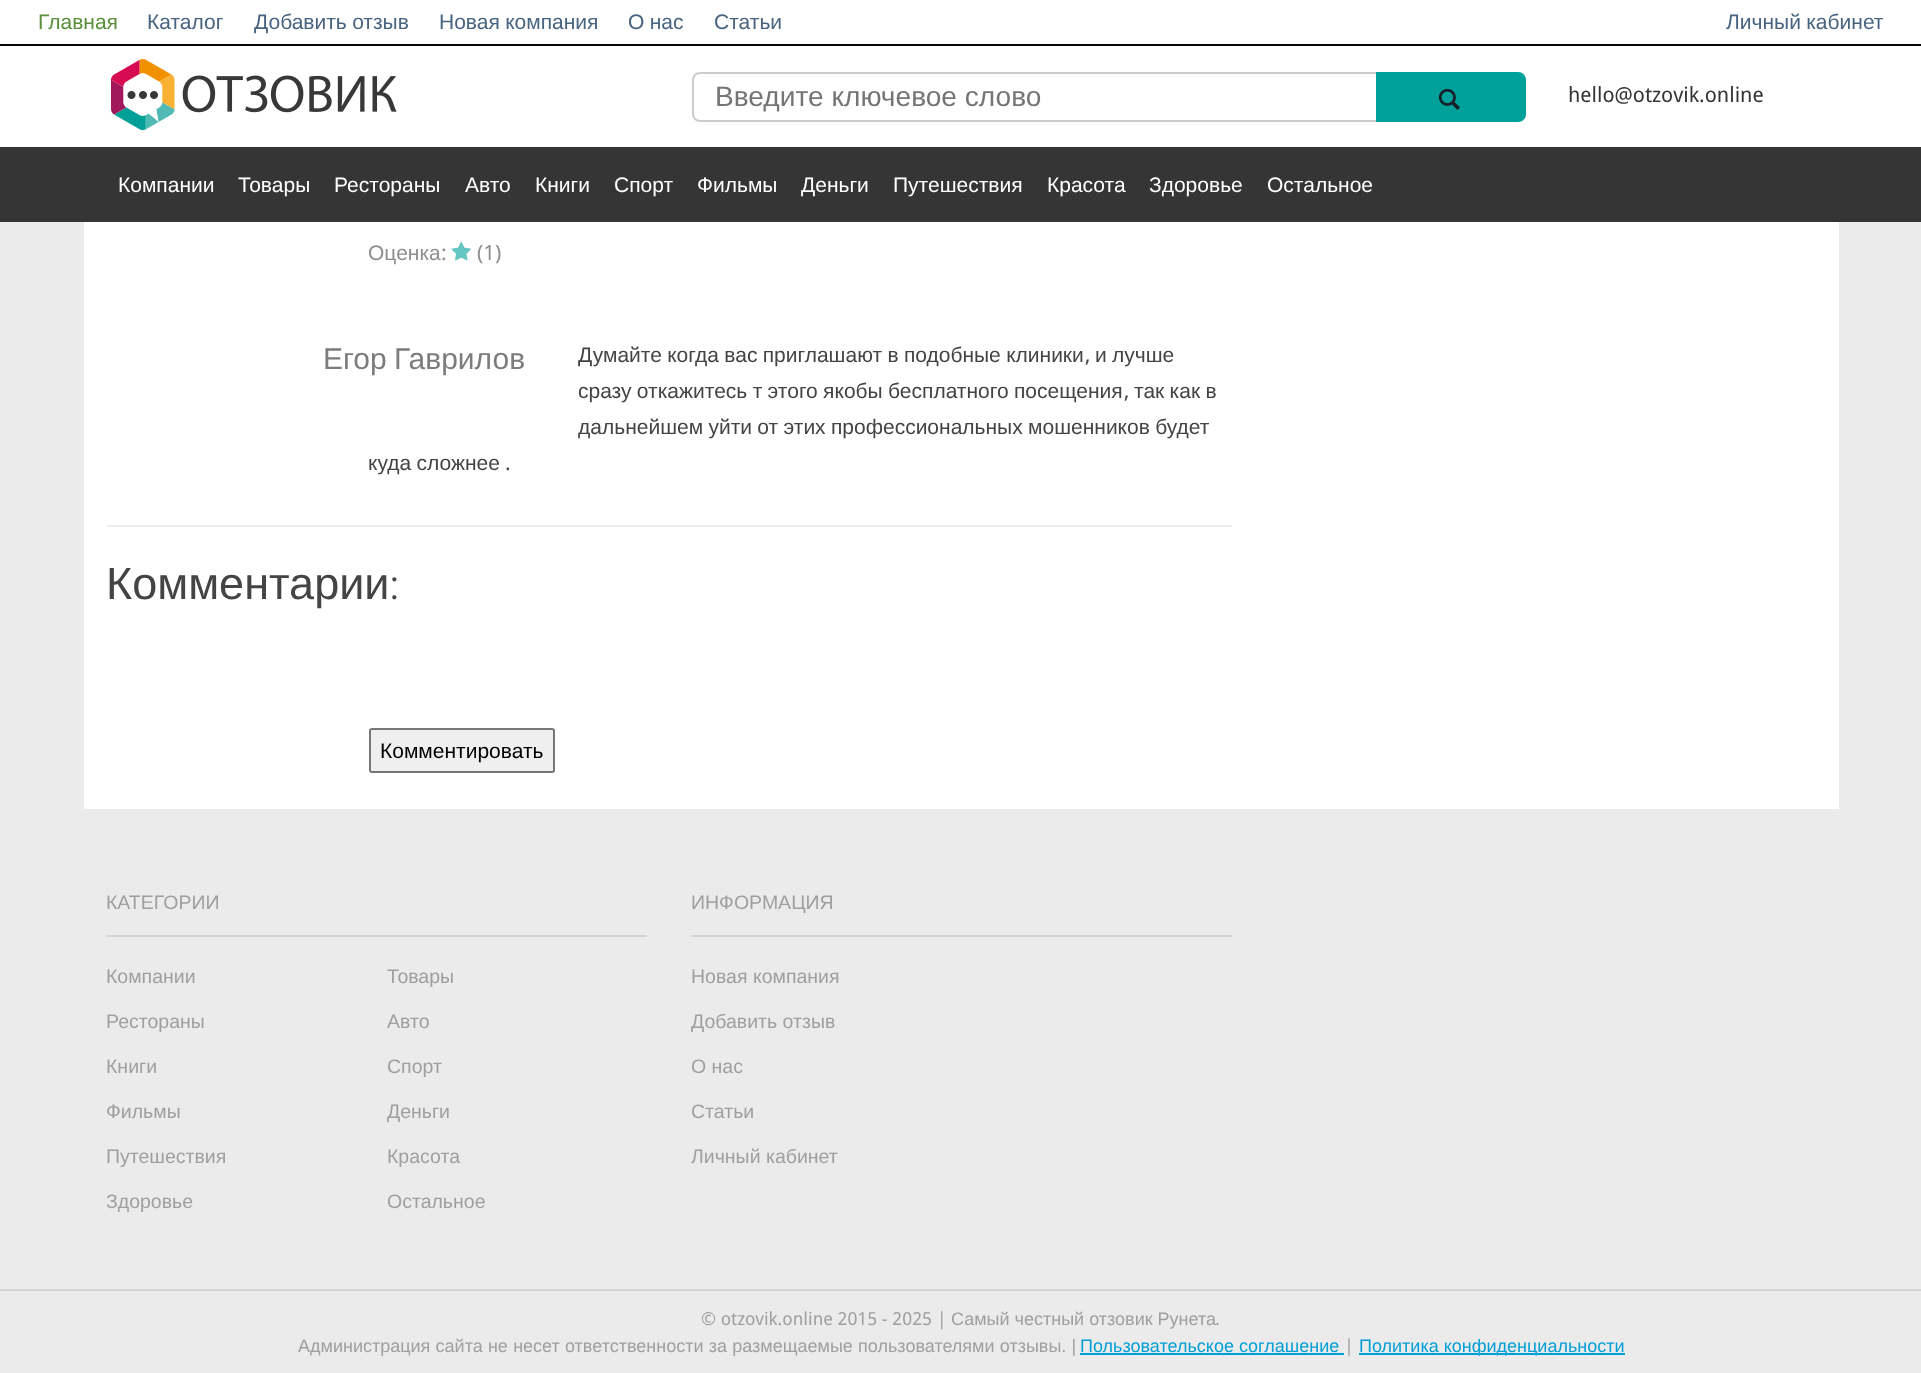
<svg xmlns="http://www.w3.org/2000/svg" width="1921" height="1373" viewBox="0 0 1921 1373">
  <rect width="100%" height="100%" fill="rgb(235,235,235)"/>
  <rect x="0" y="0" width="1921" height="44" fill="rgb(255,255,255)"/>
  <rect x="0" y="44" width="1921" height="2" fill="rgb(8,8,8)"/>
  <text x="38" y="29" font-family="Liberation Sans" font-size="21" fill="rgb(89,143,59)">Главная</text>
  <g font-family="Liberation Sans" font-size="21" fill="rgb(71,100,129)">
    <text x="147" y="29">Каталог</text>
    <text x="254" y="29" word-spacing="-0.5">Добавить отзыв</text>
    <text x="439" y="29" word-spacing="-0.5">Новая компания</text>
    <text x="628" y="29" word-spacing="-0.5">О нас</text>
    <text x="714" y="29">Статьи</text>
    <text x="1726" y="29" word-spacing="-0.5">Личный кабинет</text>
  </g>
  <rect x="0" y="46" width="1921" height="101" fill="rgb(255,255,255)"/>
  <image x="111" y="59" width="286" height="72" href="pic1.png"/>
  <rect x="693" y="73" width="830" height="48" rx="7" fill="none" stroke="rgb(204,204,204)" stroke-width="2"/>
  <text x="715" y="106" font-family="Liberation Sans" font-size="28.1" fill="rgb(117,117,117)">Введите ключевое слово</text>
  <path d="M1376 72H1518C1522.5 72 1526 75.5 1526 80V114C1526 118.5 1522.5 122 1518 122H1376Z" fill="rgb(0,161,154)"/>
  <image x="1438" y="88" width="22" height="22" href="pic2.png"/>
  <text x="1568" y="102" font-family="Droid Sans" font-size="21" fill="rgb(53,53,53)">hello@otzovik.online</text>
  <rect x="0" y="147" width="1921" height="75" fill="rgb(53,53,53)"/>
  <g font-family="Liberation Sans" font-size="21" fill="rgb(255,255,255)">
    <text x="118" y="192">Компании</text>
    <text x="238" y="192">Товары</text>
    <text x="334" y="192">Рестораны</text>
    <text x="465" y="192">Авто</text>
    <text x="535" y="192">Книги</text>
    <text x="614" y="192">Спорт</text>
    <text x="697" y="192">Фильмы</text>
    <text x="801" y="192">Деньги</text>
    <text x="893" y="192">Путешествия</text>
    <text x="1047" y="192">Красота</text>
    <text x="1149" y="192">Здоровье</text>
    <text x="1267" y="192">Остальное</text>
  </g>
  <rect x="84" y="222" width="1755" height="587" fill="rgb(255,255,255)"/>
  <text x="368" y="260" font-family="Liberation Sans" font-size="21" fill="rgb(143,143,143)">Оценка</text>
  <text x="441" y="260" font-family="Droid Sans" font-size="21" fill="rgb(143,143,143)">:</text>
  <image x="451" y="241" width="20" height="20" href="pic3.png"/>
  <text x="477" y="260" font-family="Droid Sans" font-size="21" fill="rgb(143,143,143)">(1)</text>
  <text x="323" y="369" word-spacing="-1" font-family="Liberation Sans" font-size="30" fill="rgb(124,124,124)">Егор Гаврилов</text>
  <text x="578" y="362" word-spacing="-0.5" font-family="Liberation Sans" font-size="21" fill="rgb(68,68,68)">Думайте когда вас приглашают в подобные клиники</text>
  <text x="1085" y="362" font-family="Droid Sans" font-size="21" fill="rgb(68,68,68)">,</text>
  <g font-family="Liberation Sans" font-size="21" fill="rgb(68,68,68)">
    <text x="1095" y="362" word-spacing="-0.5">и лучше</text>
    <text x="578" y="398" word-spacing="-0.5">сразу откажитесь т этого якобы бесплатного посещения</text>
  </g>
  <text x="1124" y="398" font-family="Droid Sans" font-size="21" fill="rgb(68,68,68)">,</text>
  <g font-family="Liberation Sans" font-size="21" fill="rgb(68,68,68)">
    <text x="1134" y="398" word-spacing="-0.5">так как в</text>
    <text x="578" y="434" word-spacing="-0.5">дальнейшем уйти от этих профессиональных мошенников будет</text>
    <text x="368" y="470" word-spacing="-0.5">куда сложнее</text>
  </g>
  <text x="505" y="470" font-family="Droid Sans" font-size="21" fill="rgb(68,68,68)">.</text>
  <rect x="107" y="525" width="1125" height="2" fill="rgb(238,238,238)"/>
  <text x="106" y="599" font-family="Liberation Sans" font-size="45" fill="rgb(68,68,68)">Комментарии</text>
  <text x="389" y="599" font-family="Lato" font-size="45" font-weight="300" fill="rgb(68,68,68)">:</text>
  <rect x="370" y="729" width="184" height="43" rx="2" fill="rgb(239,239,239)" stroke="rgb(118,118,118)" stroke-width="2"/>
  <text x="380" y="758" font-family="Liberation Sans" font-size="21" fill="rgb(0,0,0)">Комментировать</text>
  <rect x="107" y="935" width="540" height="2" fill="rgb(212,212,212)"/>
  <g font-family="Liberation Sans" font-size="19.5" fill="rgb(159,159,159)">
    <text x="106" y="909">КАТЕГОРИИ</text>
    <text x="106" y="983">Компании</text>
    <text x="387" y="983">Товары</text>
    <text x="106" y="1028">Рестораны</text>
    <text x="387" y="1028">Авто</text>
    <text x="106" y="1073">Книги</text>
    <text x="387" y="1073">Спорт</text>
    <text x="106" y="1118">Фильмы</text>
    <text x="387" y="1118">Деньги</text>
    <text x="106" y="1163">Путешествия</text>
    <text x="387" y="1163">Красота</text>
    <text x="106" y="1208">Здоровье</text>
    <text x="387" y="1208">Остальное</text>
  </g>
  <rect x="692" y="935" width="540" height="2" fill="rgb(212,212,212)"/>
  <g font-family="Liberation Sans" font-size="19.5" fill="rgb(159,159,159)">
    <text x="691" y="909">ИНФОРМАЦИЯ</text>
    <text x="691" y="983">Новая компания</text>
    <text x="691" y="1028">Добавить отзыв</text>
    <text x="691" y="1073">О нас</text>
    <text x="691" y="1118">Статьи</text>
    <text x="691" y="1163">Личный кабинет</text>
  </g>
  <rect x="0" y="1289" width="1921" height="2" fill="rgb(212,212,212)"/>
  <text x="701" y="1325" font-family="Droid Sans" font-size="18" fill="rgb(159,159,159)">© otzovik.online 2015 - 2025 |</text>
  <text x="951" y="1325" font-family="Liberation Sans" font-size="18" fill="rgb(159,159,159)">Самый честный отзовик Рунета</text>
  <text x="1215" y="1325" font-family="Droid Sans" font-size="18" fill="rgb(159,159,159)">.</text>
  <text x="298" y="1352" word-spacing="0.25" font-family="Liberation Sans" font-size="18" fill="rgb(159,159,159)">Администрация сайта не несет ответственности за размещаемые пользователями отзывы. |</text>
  <text x="1080" y="1352" font-family="Liberation Sans" font-size="18" fill="rgb(0,159,214)">Пользовательское соглашение</text>
  <rect x="1080" y="1353" width="264" height="2" fill="rgb(0,159,214)"/>
  <text x="1344" y="1352" font-family="Droid Sans" font-size="18" fill="rgb(159,159,159)">|</text>
  <rect x="1359" y="1353" width="266" height="2" fill="rgb(0,159,214)"/>
  <text x="1359" y="1352" font-family="Liberation Sans" font-size="18" fill="rgb(0,159,214)">Политика конфиденциальности</text>
</svg>
